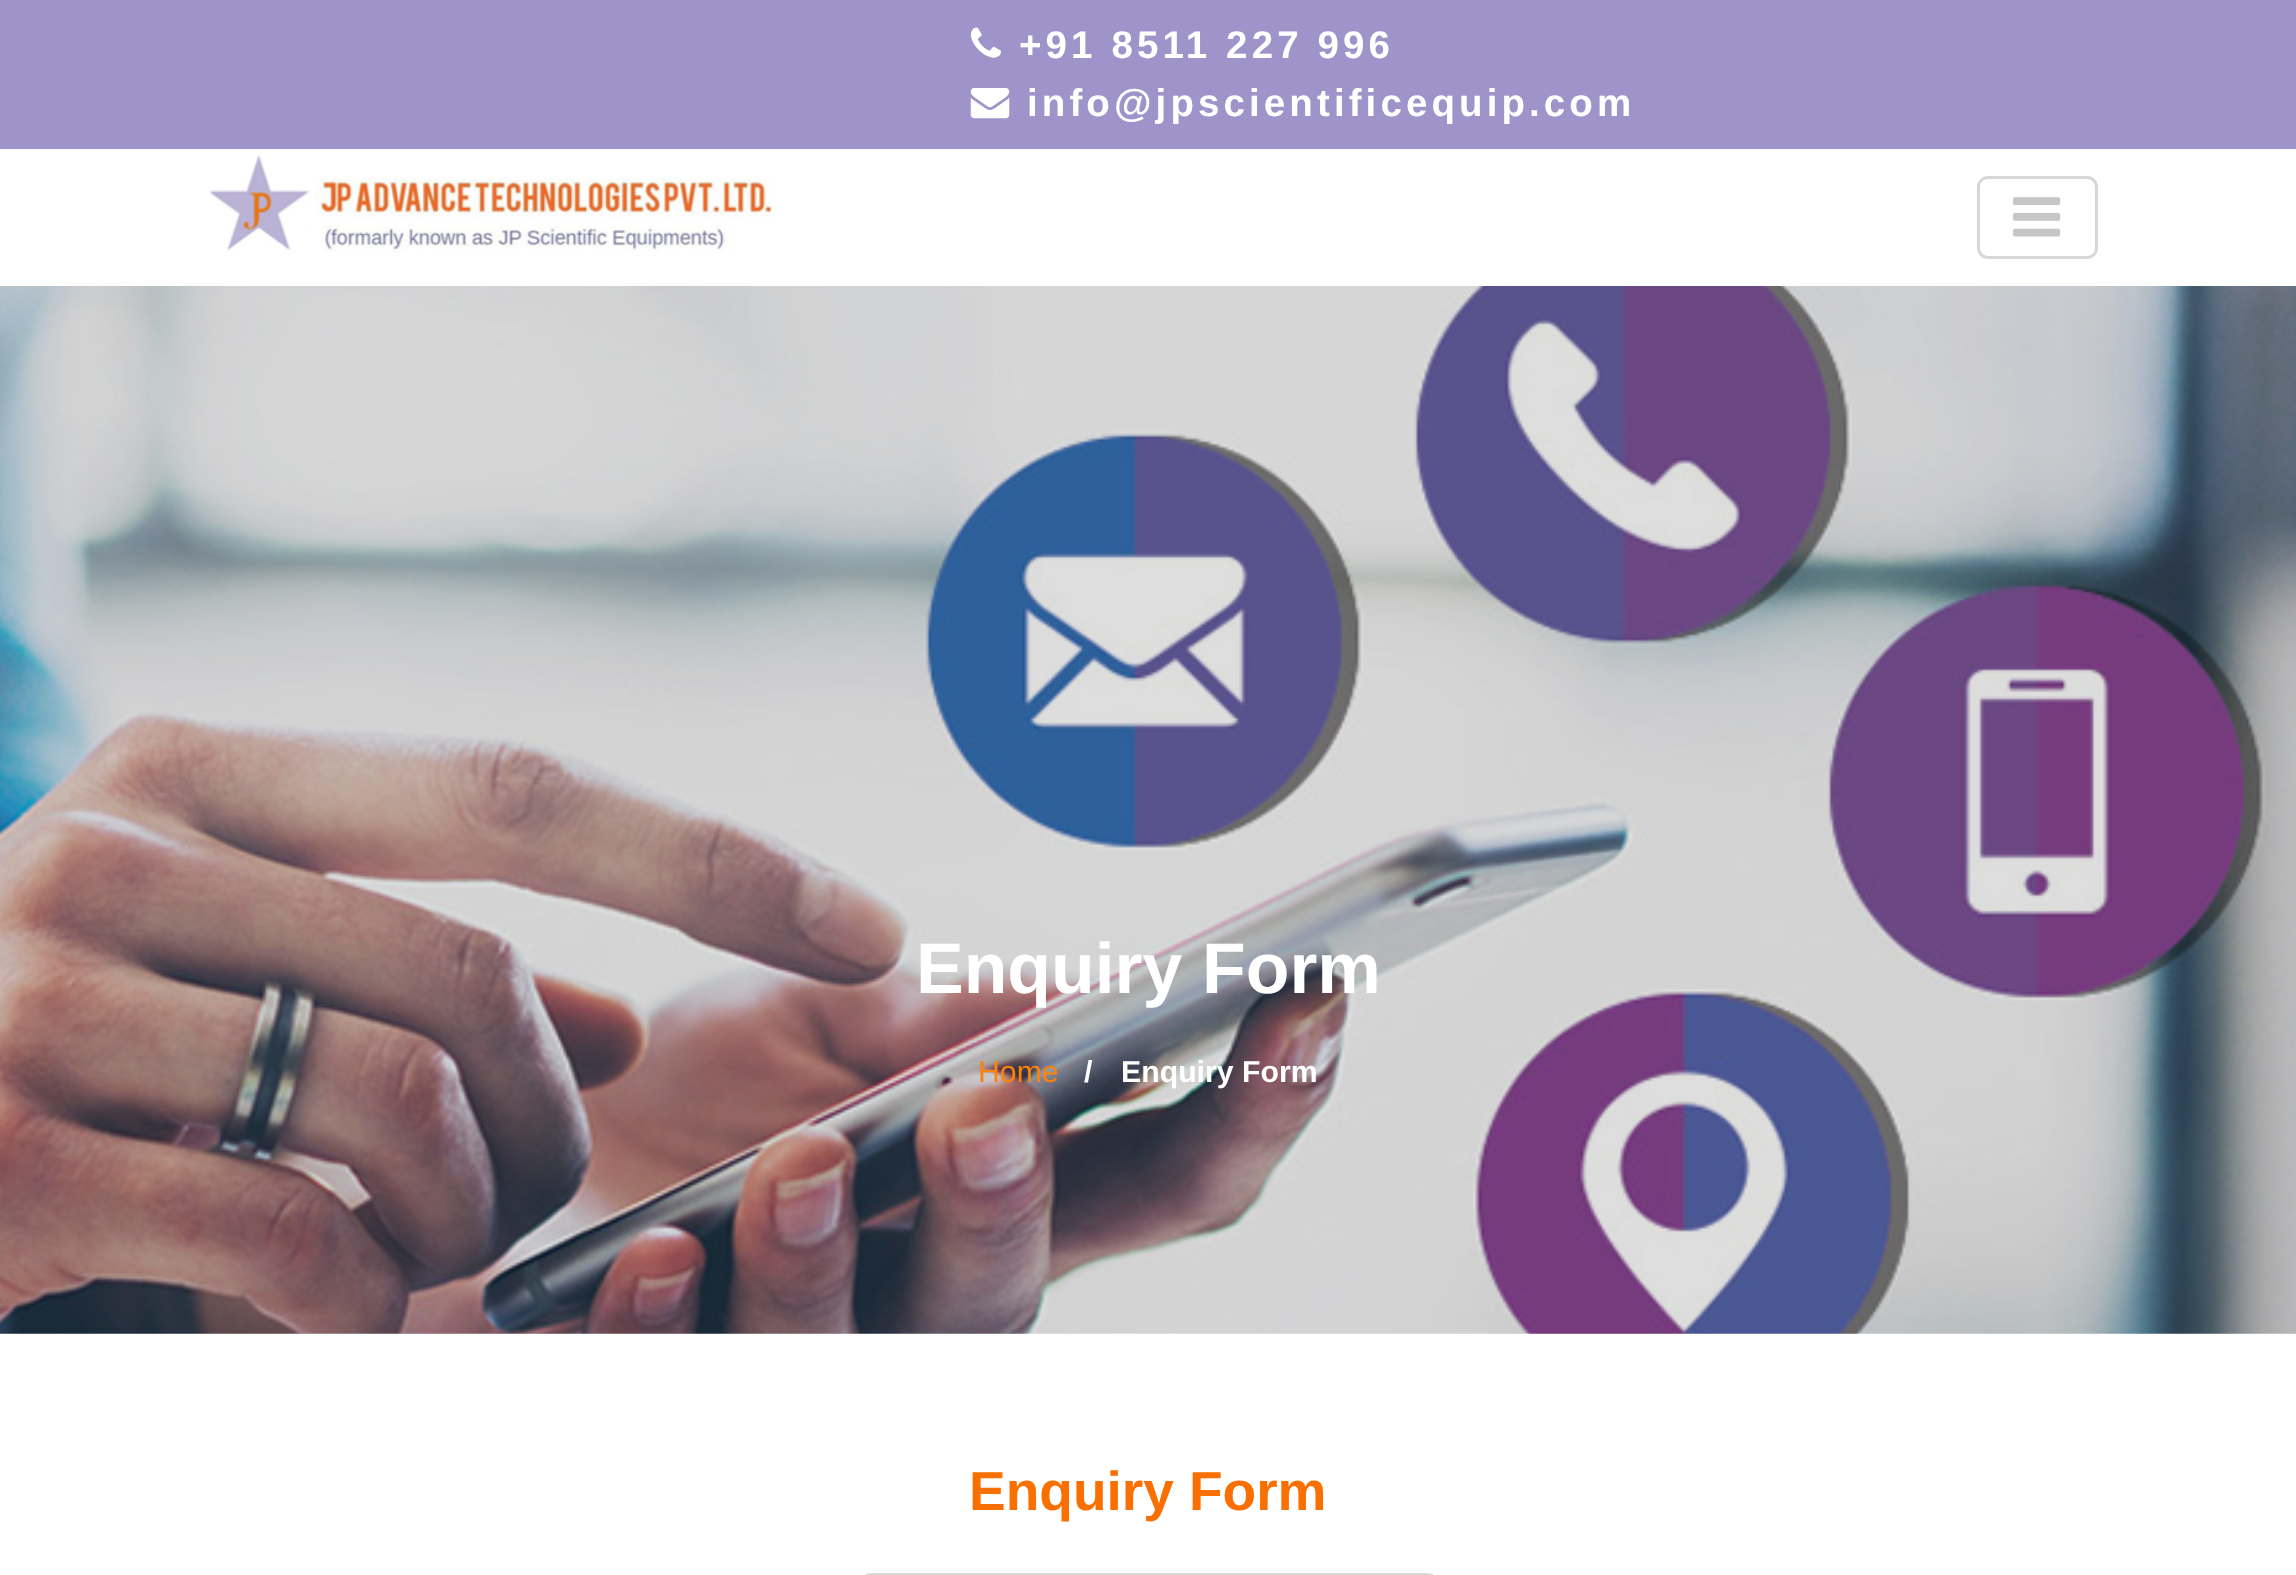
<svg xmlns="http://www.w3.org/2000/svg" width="2296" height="1575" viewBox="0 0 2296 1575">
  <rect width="100%" height="100%" fill="rgb(255,255,255)"/>
  <rect x="0" y="0" width="2296" height="149" fill="rgb(159,148,201)"/>
  <image x="970" y="27" width="31" height="31" href="pic1.png"/>
  <text x="1019" y="58" font-family="Liberation Sans" font-size="38.5" font-weight="bold" letter-spacing="4.1" fill="rgb(255,255,255)">+91 8511 227 996</text>
  <image x="970" y="88" width="40" height="31" href="pic2.png"/>
  <text x="1027" y="116" font-family="Liberation Sans" font-size="38.5" font-weight="bold" letter-spacing="4.1" fill="rgb(255,255,255)">info@jpscientificequip.com</text>
  <image x="210" y="155" width="565" height="98" href="pic3.png"/>
  <rect x="1978.5" y="177.5" width="118" height="80" rx="9.5" fill="none" stroke="rgb(215,215,215)" stroke-width="3"/>
  <image x="2013" y="197" width="48" height="40" href="pic4.png"/>
  <image x="0" y="286" width="2296" height="1048" href="pic5.png"/>
  <text x="916" y="993" font-family="Liberation Sans" font-size="71.5" font-weight="bold" fill="rgb(255,255,255)">Enquiry Form</text>
  <text x="978" y="1082" font-family="Liberation Sans" font-size="30.25" fill="rgb(255,130,8)">Home</text>
  <g font-family="Liberation Sans" font-size="30.25" font-weight="bold" fill="rgb(255,255,255)">
    <text x="1084" y="1082">/</text>
    <text x="1121" y="1082">Enquiry Form</text>
  </g>
  <text x="969" y="1510" font-family="Liberation Sans" font-size="55" font-weight="bold" fill="rgb(250,112,0)">Enquiry Form</text>
  <rect x="862.5" y="1574.5" width="574" height="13" rx="9.5" fill="none" stroke="rgb(217,217,217)" stroke-width="3"/>
</svg>
